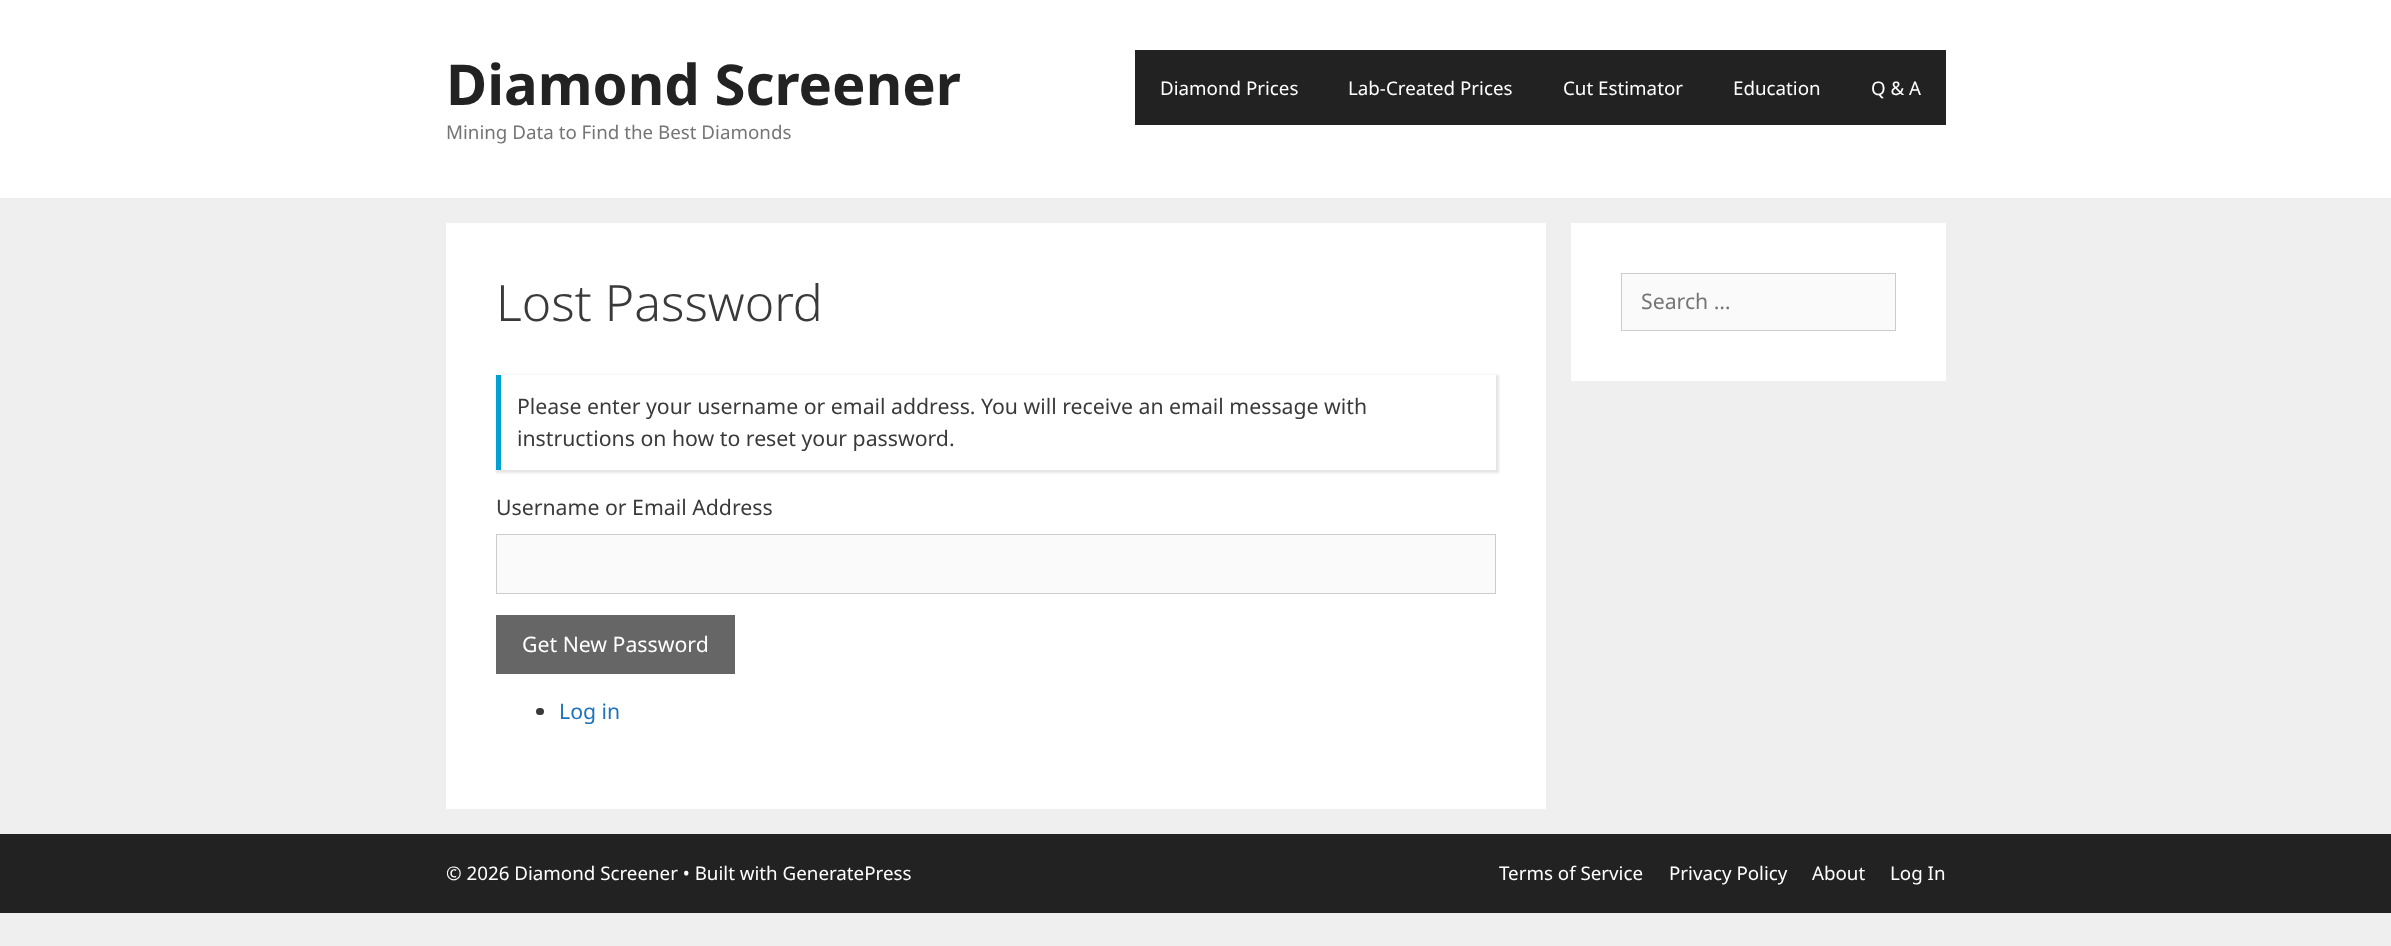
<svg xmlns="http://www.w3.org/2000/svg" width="2391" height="946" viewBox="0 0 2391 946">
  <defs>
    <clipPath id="clip1"><path d="M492 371H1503V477H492ZM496 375H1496V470H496Z" clip-rule="evenodd"/></clipPath>
  </defs>
  <rect width="100%" height="100%" fill="rgb(239,239,239)"/>
  <rect x="0" y="0" width="2391" height="198" fill="rgb(255,255,255)"/>
  <text x="446" y="105" font-family="Noto Sans" font-size="56.25" font-weight="bold" fill="rgb(34,34,34)">Diamond Screener</text>
  <text x="446" y="139" font-family="Noto Sans" font-size="18.75" fill="rgb(117,117,117)">Mining Data to Find the Best Diamonds</text>
  <rect x="1135" y="50" width="811" height="75" fill="rgb(34,34,34)"/>
  <g font-family="Noto Sans" font-size="18.75" fill="rgb(255,255,255)">
    <text x="1160" y="95">Diamond Prices</text>
    <text x="1348" y="95">Lab-Created Prices</text>
    <text x="1563" y="95">Cut Estimator</text>
    <text x="1733" y="95">Education</text>
    <text x="1871" y="95">Q &amp; A</text>
  </g>
  <rect x="446" y="223" width="1100" height="586" fill="rgb(255,255,255)"/>
  <text x="496" y="321" font-family="Noto Sans" font-size="50" font-weight="300" fill="rgb(58,58,58)">Lost Password</text>
  <g clip-path="url(#clip1)">
    <rect x="496" y="375" width="1003" height="98" fill="rgba(0,0,0,0.1)" filter="blur(1px)"/>
  </g>
  <rect x="496" y="375" width="5" height="95" fill="rgb(0,160,210)"/>
  <g font-family="Noto Sans" font-size="21.25" fill="rgb(58,58,58)">
    <text>
      <tspan x="517" y="414">Please enter your username or email address. You will receive an email message with</tspan>
      <tspan x="517" y="446">instructions on how to reset your password.</tspan>
    </text>
    <text x="496" y="515">Username or Email Address</text>
  </g>
  <rect x="496.5" y="534.5" width="999" height="59" fill="rgb(250,250,250)" stroke="rgb(204,204,204)"/>
  <rect x="496" y="615" width="239" height="59" fill="rgb(102,102,102)"/>
  <text x="522" y="652" font-family="Noto Sans" font-size="21.25" fill="rgb(255,255,255)">Get New Password</text>
  <rect x="536" y="708" width="8" height="7" rx="3.5" fill="rgb(58,58,58)"/>
  <text x="559" y="719" font-family="Noto Sans" font-size="21.25" fill="rgb(30,115,190)">Log in</text>
  <rect x="1571" y="223" width="375" height="158" fill="rgb(255,255,255)"/>
  <rect x="1621.5" y="273.5" width="274" height="57" fill="rgb(250,250,250)" stroke="rgb(204,204,204)"/>
  <text x="1641" y="309" font-family="Noto Sans" font-size="21.25" fill="rgb(117,117,117)">Search …</text>
  <rect x="0" y="834" width="2391" height="79" fill="rgb(34,34,34)"/>
  <g font-family="Noto Sans" font-size="18.75" fill="rgb(255,255,255)">
    <text x="446" y="880">© 2026 Diamond Screener • Built with GeneratePress</text>
    <text x="1499" y="880">Terms of Service</text>
    <text x="1669" y="880">Privacy Policy</text>
    <text x="1812" y="880">About</text>
    <text x="1890" y="880">Log In</text>
  </g>
</svg>
